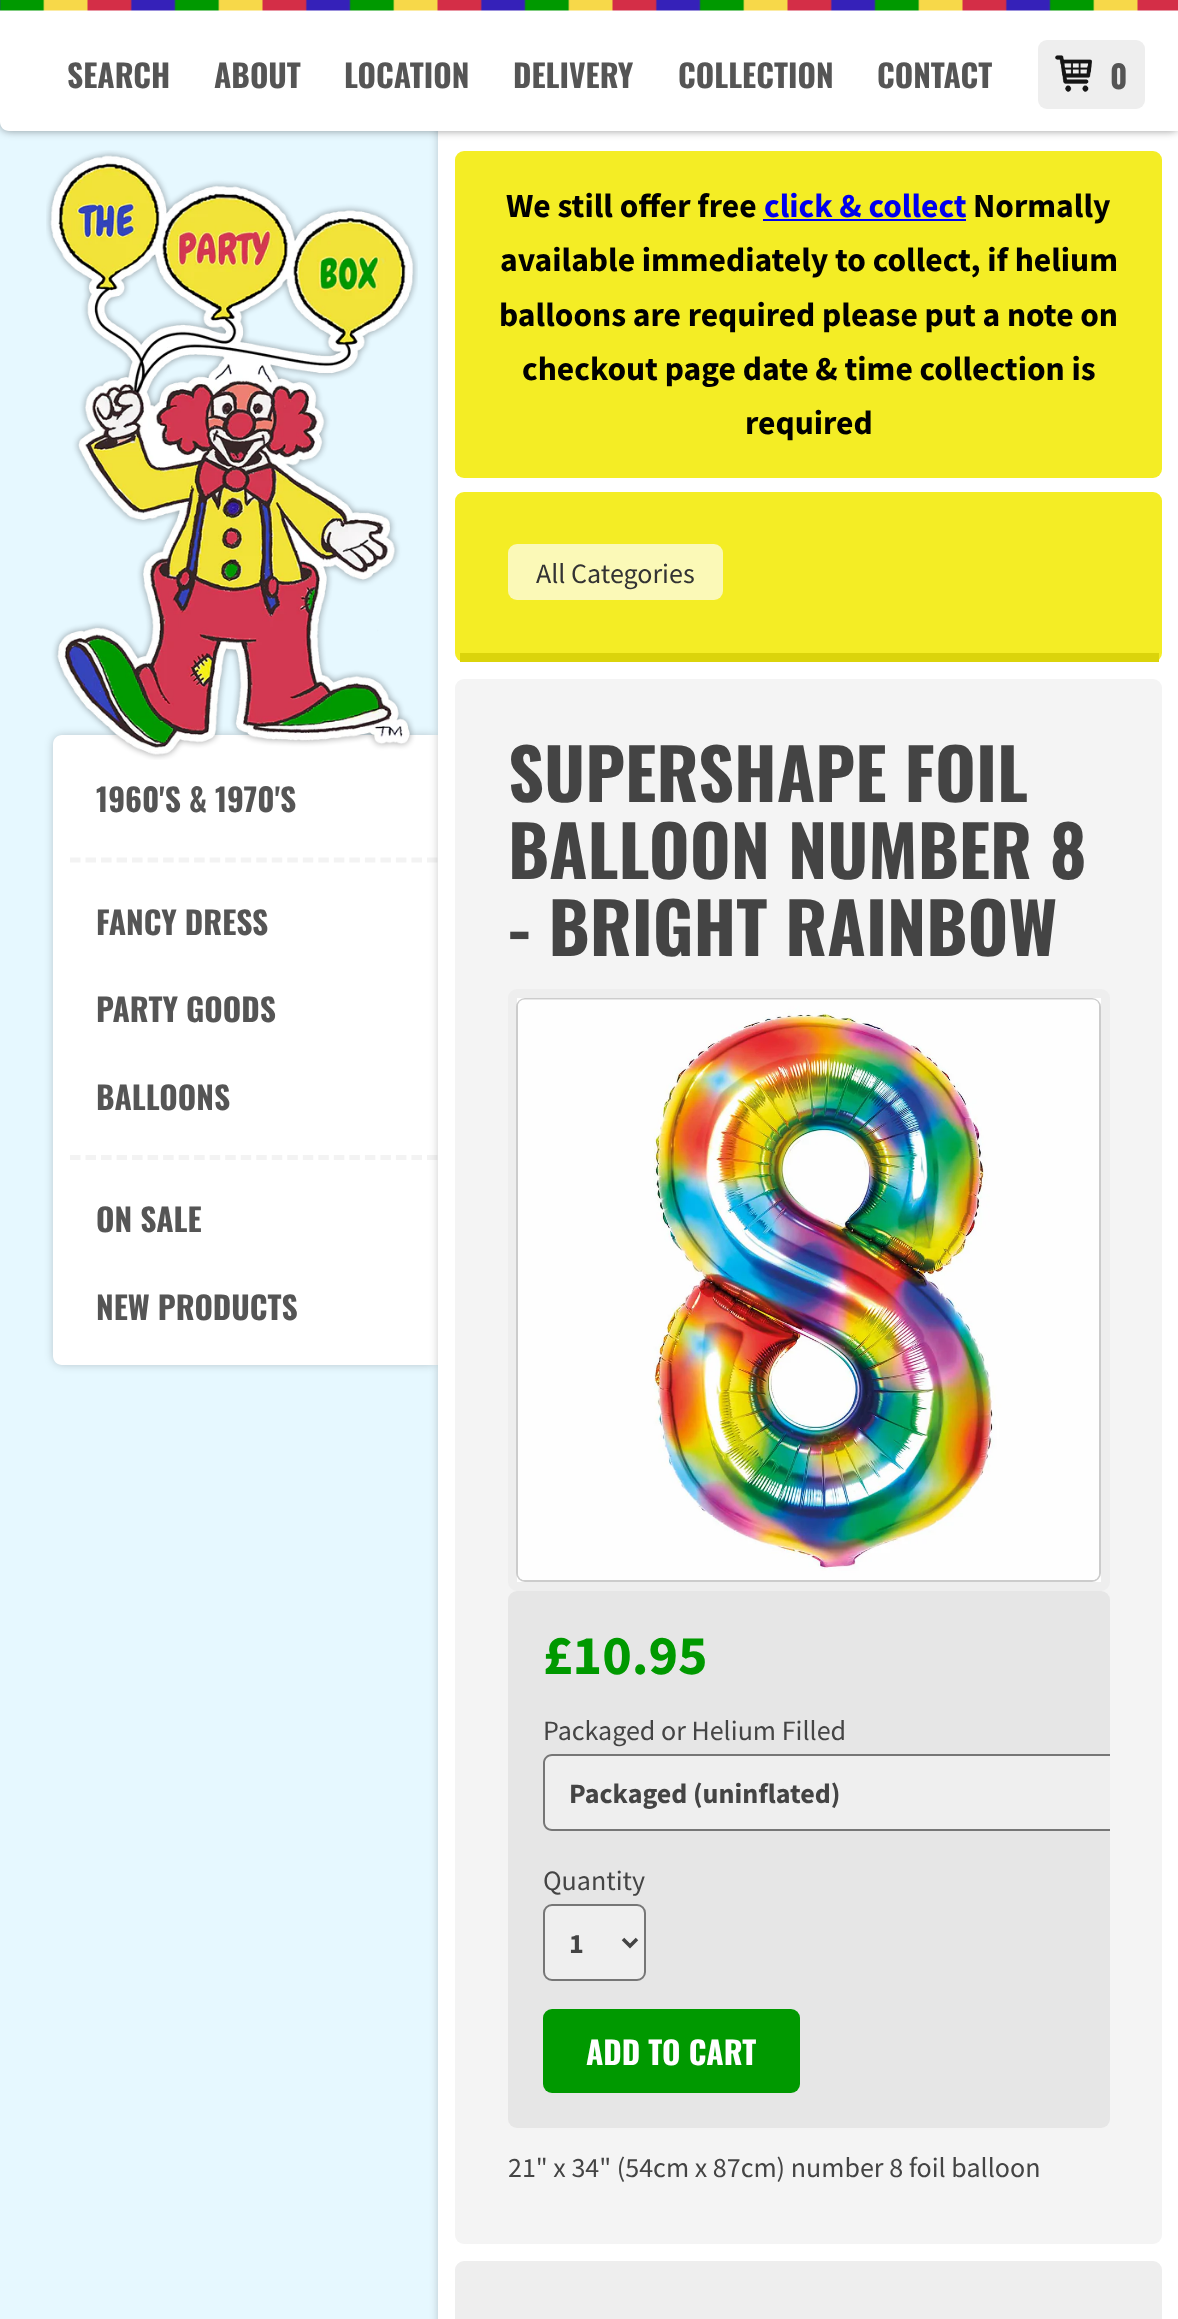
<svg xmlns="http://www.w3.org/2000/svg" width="1178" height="2319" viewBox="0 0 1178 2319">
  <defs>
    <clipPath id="clip1"><rect x="508" y="989" width="602" height="1202"/></clipPath>
  </defs>
  <rect width="100%" height="100%" fill="rgb(230,248,255)"/>
  <rect x="53" y="735" width="385" height="630" rx="9" fill="rgba(0,0,0,0.2)" filter="blur(4.5px)"/>
  <path d="M62 735H438V1365H62C57 1365 53 1361 53 1356V744C53 739 57 735 62 735Z" fill="rgb(255,255,255)"/>
  <path d="M70 860H437.5" fill="none" stroke="rgb(243,243,243)" stroke-width="5.2" stroke-dasharray="10.5 5.02"/>
  <path d="M70 1157.5H437.5" fill="none" stroke="rgb(243,243,243)" stroke-width="5.2" stroke-dasharray="10.5 5.02"/>
  <rect x="438" y="0" width="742" height="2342" rx="9" fill="rgba(0,0,0,0.2)" filter="blur(4.5px)"/>
  <rect x="438" y="131" width="740" height="2188" fill="rgb(255,255,255)"/>
  <rect x="0" y="0" width="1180" height="131" rx="9" fill="rgba(0,0,0,0.4)" filter="blur(4.5px)"/>
  <path d="M0 0H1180V131H9C4 131 0 127 0 122Z" fill="rgb(255,255,255)"/>
  <image x="0" y="0" width="1178" height="11" href="pic1.png"/>
  <g font-family="Oswald" font-size="31.5" font-weight="bold" fill="rgb(85,85,85)">
    <text x="67" y="88">SEARCH</text>
    <text x="214" y="88">ABOUT</text>
    <text x="344" y="88">LOCATION</text>
    <text x="513" y="88">DELIVERY</text>
    <text x="678" y="88">COLLECTION</text>
    <text x="877" y="88">CONTACT</text>
  </g>
  <rect x="1038" y="40" width="107" height="69" rx="9" fill="rgb(238,238,238)"/>
  <image x="1055" y="55" width="37" height="37" href="pic2.png"/>
  <text x="1110" y="89" font-family="Oswald" font-size="31.5" font-weight="bold" fill="rgb(85,85,85)">0</text>
  <image x="46" y="150" width="372" height="610" href="pic3.png"/>
  <rect x="455" y="151" width="707" height="327" rx="9" fill="rgb(244,237,37)"/>
  <text x="506" y="217" font-family="Source Sans Pro" font-size="33.6" font-weight="bold" fill="rgb(0,0,0)">We still offer free</text>
  <text x="764" y="217" font-family="Source Sans Pro" font-size="33.6" font-weight="bold" fill="rgb(0,0,238)">click &amp; collect</text>
  <rect x="763" y="219" width="203" height="2" fill="rgb(0,0,238)"/>
  <g font-family="Source Sans Pro" font-size="33.6" font-weight="bold" fill="rgb(0,0,0)">
    <text x="973" y="217">Normally</text>
    <text x="500" y="271">available immediately to collect, if helium</text>
    <text x="499" y="326">balloons are required please put a note on</text>
    <text x="522" y="380">checkout page date &amp; time collection is</text>
    <text x="745" y="434">required</text>
  </g>
  <rect x="455" y="492" width="707" height="170" rx="9" fill="rgb(244,237,37)"/>
  <rect x="460" y="653" width="699" height="9" fill="rgb(219,212,11)"/>
  <rect x="508" y="544" width="215" height="56" rx="9" fill="rgb(251,249,183)"/>
  <text x="536" y="583" font-family="Source Sans Pro" font-size="28" fill="rgb(51,51,51)">All Categories</text>
  <rect x="455" y="679" width="707" height="1565" rx="9" fill="rgb(244,244,244)"/>
  <g font-family="Oswald" font-size="70" font-weight="bold" fill="rgb(68,68,68)">
    <text>
      <tspan x="508" y="802">SUPERSHAPE FOIL</tspan>
      <tspan x="508" y="879">BALLOON NUMBER 8</tspan>
      <tspan x="508" y="956">- BRIGHT RAINBOW</tspan>
    </text>
  </g>
  <rect x="512.5" y="993.5" width="593" height="593" rx="4.5" fill="rgb(255,255,255)" stroke="rgb(238,238,238)" stroke-width="9"/>
  <rect x="517" y="999" width="583" height="582" rx="8" fill="none" stroke="rgb(204,204,204)" stroke-width="2"/>
  <image x="518" y="999" width="581" height="581" href="pic4.png"/>
  <rect x="508" y="1591" width="602" height="537" rx="9" fill="rgb(230,230,230)"/>
  <text x="543" y="1674" font-family="Source Sans Pro" font-size="56" font-weight="bold" fill="rgb(0,153,0)">£10.95</text>
  <text x="543" y="1740" font-family="Source Sans Pro" font-size="28" fill="rgb(68,68,68)">Packaged or Helium Filled</text>
  <path d="M552 1754H1110V1831H552C547 1831 543 1827 543 1822V1763C543 1758 547 1754 552 1754Z" fill="rgb(239,239,239)"/>
  <g clip-path="url(#clip1)">
    <path d="M552 1754C547 1754 543 1758 543 1763V1822C543 1827 547 1831 552 1831H1162V1829H552C548 1829 545 1826 545 1822V1763C545 1759 548 1756 552 1756H1162V1754Z" fill="rgb(118,118,118)"/>
  </g>
  <text x="569" y="1803" font-family="Source Sans Pro" font-size="28" font-weight="bold" fill="rgb(68,68,68)">Packaged (uninflated)</text>
  <text x="543" y="1890" font-family="Source Sans Pro" font-size="28" fill="rgb(68,68,68)">Quantity</text>
  <rect x="544" y="1905" width="101" height="75" rx="8" fill="rgb(239,239,239)" stroke="rgb(118,118,118)" stroke-width="2"/>
  <path d="M623 1939L630 1946L637 1939" fill="none" stroke="rgb(68,68,68)" stroke-width="3.5"/>
  <text x="569" y="1953" font-family="Source Sans Pro" font-size="28" font-weight="bold" fill="rgb(68,68,68)">1</text>
  <rect x="543" y="2009" width="257" height="84" rx="9" fill="rgb(0,153,0)"/>
  <text x="586" y="2065" font-family="Oswald" font-size="31.5" font-weight="bold" fill="rgb(255,255,255)">ADD TO CART</text>
  <text x="508" y="2177" font-family="Source Sans Pro" font-size="28" fill="rgb(68,68,68)">21" x 34" (54cm x 87cm) number 8 foil balloon</text>
  <rect x="459.5" y="2265.5" width="698" height="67" rx="4.5" fill="rgb(238,238,238)" stroke="rgb(238,238,238)" stroke-width="9"/>
  <g font-family="Oswald" font-size="31.5" font-weight="bold" fill="rgb(85,85,85)">
    <text x="96" y="812">1960'S &amp; 1970'S</text>
    <text x="96" y="935">FANCY DRESS</text>
    <text x="96" y="1022">PARTY GOODS</text>
    <text x="96" y="1110">BALLOONS</text>
    <text x="96" y="1232">ON SALE</text>
    <text x="96" y="1320">NEW PRODUCTS</text>
  </g>
</svg>
